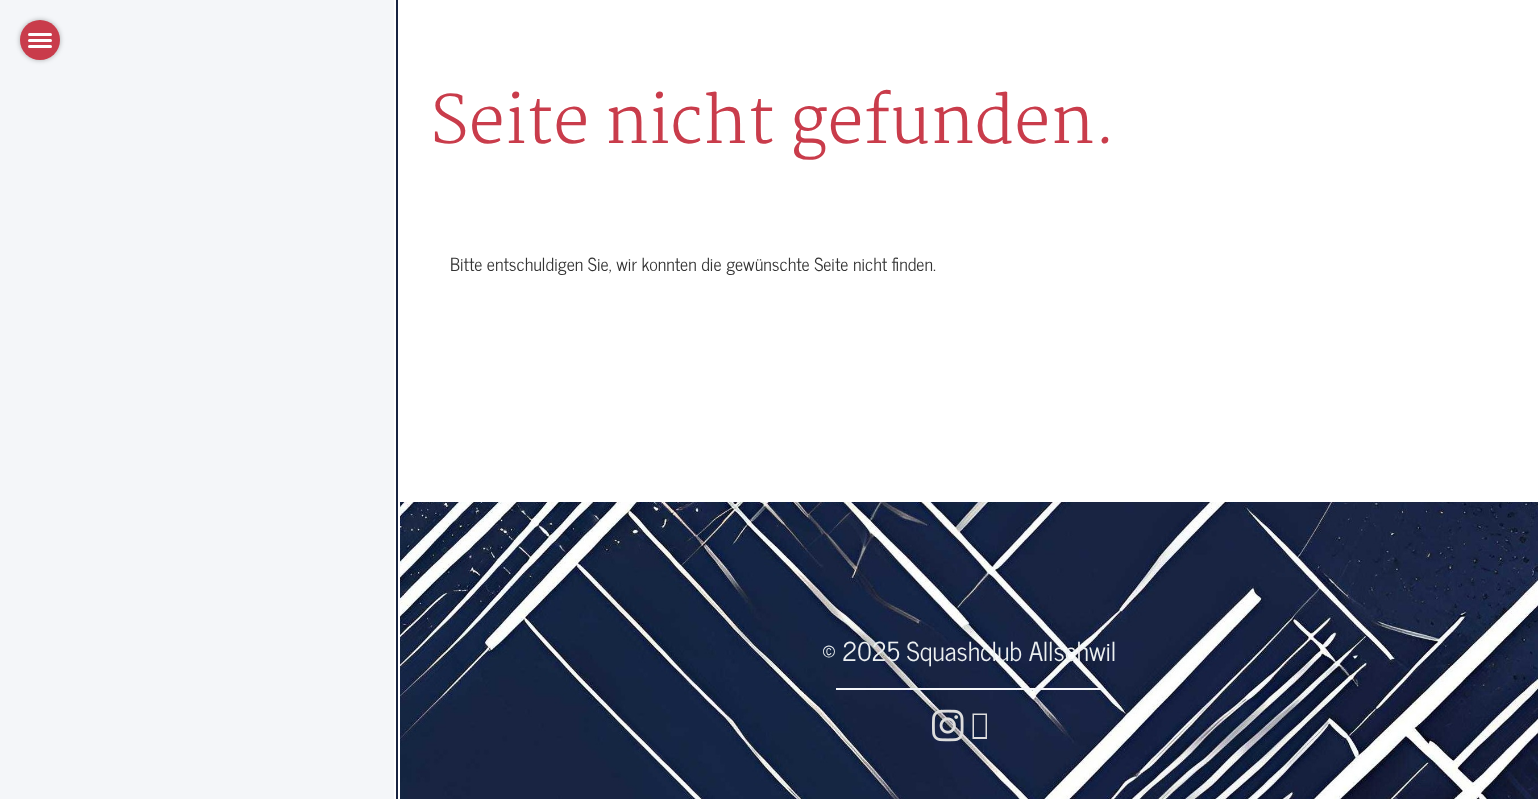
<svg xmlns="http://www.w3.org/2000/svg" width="1540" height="799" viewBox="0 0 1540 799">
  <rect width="100%" height="100%" fill="rgb(244,246,249)"/>
  <rect x="20" y="20" width="40" height="40" rx="20" fill="rgba(0,0,0,0.3)" filter="blur(2.5px)"/>
  <circle cx="40" cy="40" r="20" fill="rgb(201,60,75)"/>
  <rect x="28" y="33" width="24" height="3" rx="1.5" fill="rgb(255,255,255)"/>
  <rect x="28" y="39" width="24" height="3" rx="1.5" fill="rgb(255,255,255)"/>
  <rect x="28" y="45" width="24" height="3" rx="1.5" fill="rgb(255,255,255)"/>
  <rect x="396" y="0" width="2" height="799" fill="rgb(23,35,66)"/>
  <rect x="394" y="0" width="2" height="799" fill="rgb(255,255,255)"/>
  <rect x="398" y="0" width="1142" height="799" fill="rgb(255,255,255)"/>
  <text x="430" y="143" font-family="Martel" font-size="65" font-weight="300" fill="rgb(201,60,75)">Seite nicht gefunden.</text>
  <text x="450" y="271" font-family="News Cycle" font-size="18" fill="rgb(51,51,51)">Bitte entschuldigen Sie, wir konnten die gewünschte Seite nicht finden.</text>
  <image x="400" y="502" width="1138" height="297" href="pic1.png"/>
  <text x="822" y="661" font-family="News Cycle" font-size="26" fill="rgb(236,240,241)">© 2025 Squashclub Allschwil</text>
  <rect x="836" y="688" width="266" height="2" fill="rgb(244,246,249)"/>
  <image x="932" y="709" width="32" height="33" href="pic2.png"/>
  <path d="M972.5 739V713.5H987V739ZM974 737H985.5V715H974Z" fill="rgb(221,221,221)"/>
</svg>
